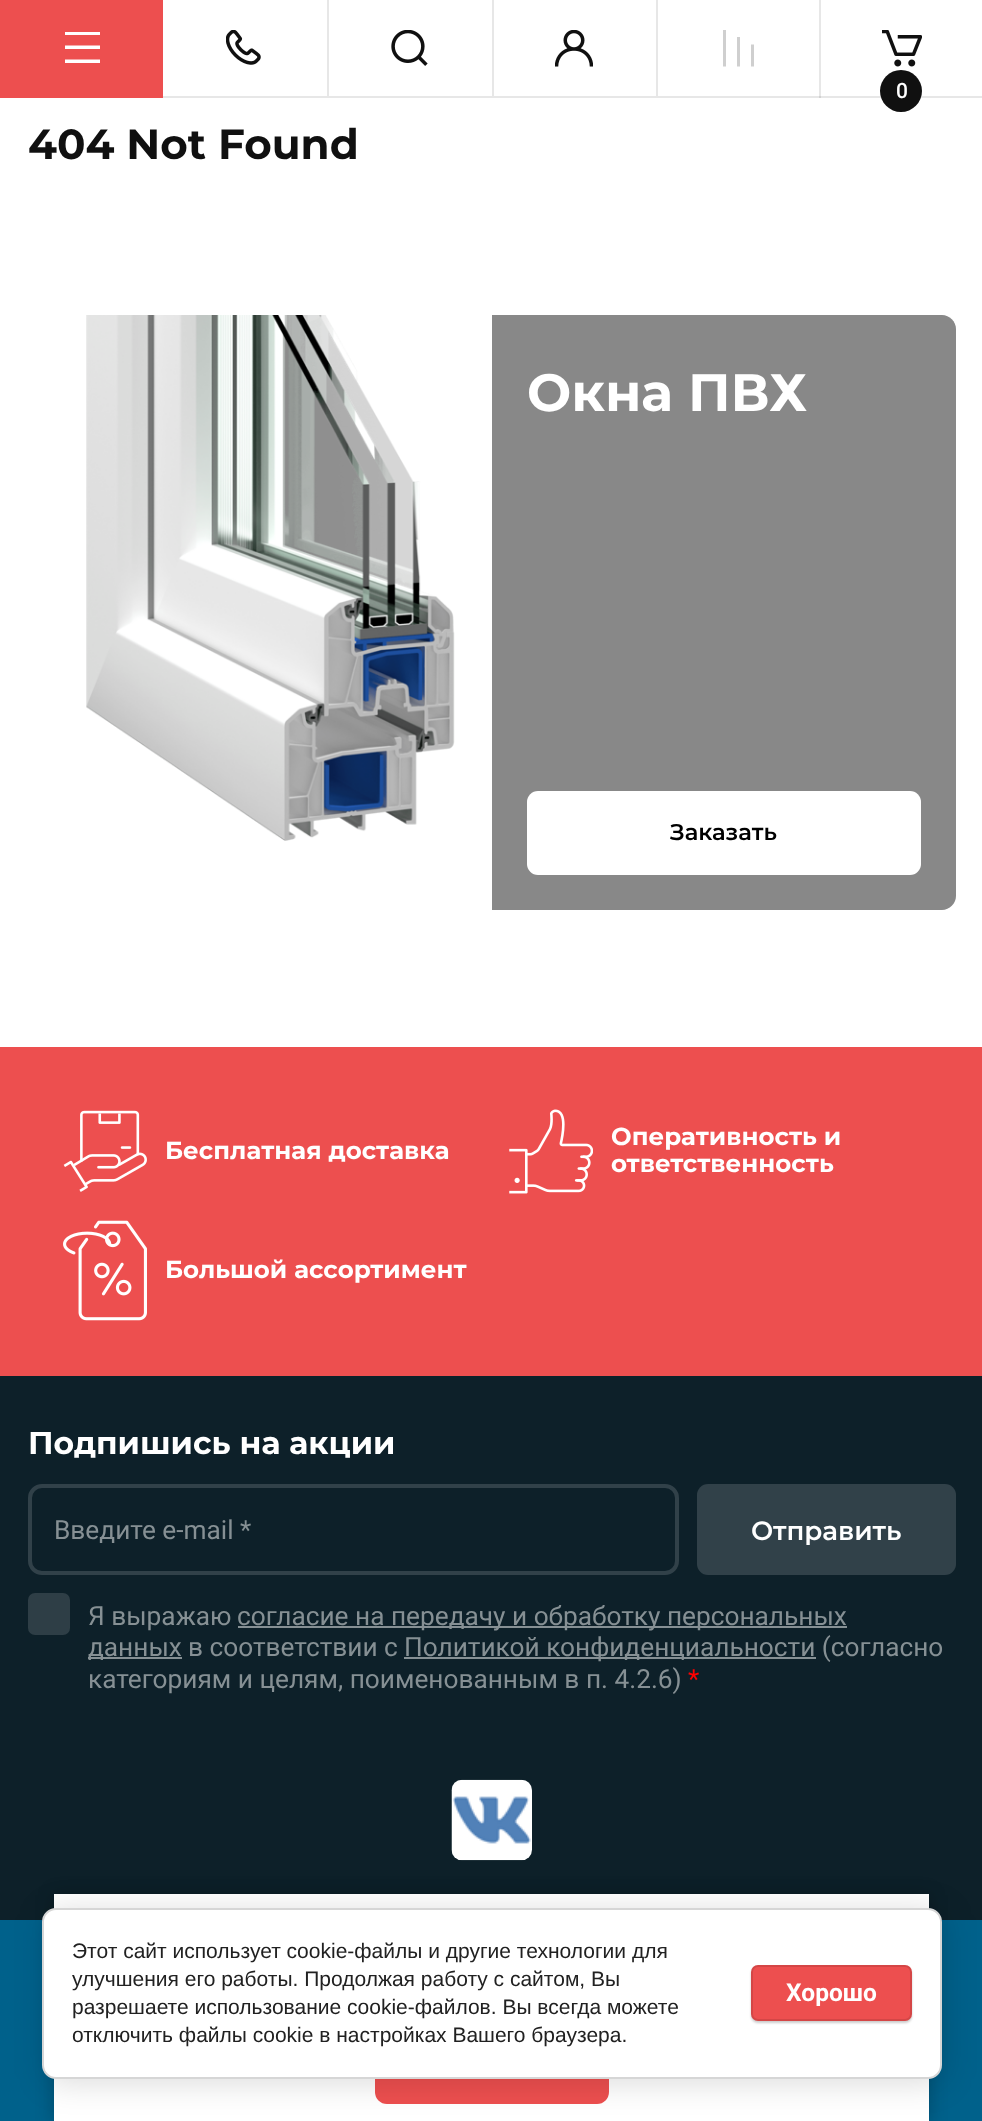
<svg xmlns="http://www.w3.org/2000/svg" width="982" height="2121" viewBox="0 0 982 2121">
  <defs>
    <clipPath id="clip1"><rect x="65" y="32" width="35" height="36"/></clipPath>
    <clipPath id="clip2"><rect x="723" y="30" width="31" height="37"/></clipPath>
  </defs>
  <rect width="100%" height="100%" fill="rgb(0,97,139)"/>
  <rect x="0" y="98" width="982" height="949" fill="rgb(255,255,255)"/>
  <rect x="163" y="0" width="819" height="98" fill="rgb(255,255,255)"/>
  <rect x="0" y="0" width="163" height="98" fill="rgb(237,79,79)"/>
  <g clip-path="url(#clip1)">
    <path d="M65 31.5H100V35H65ZM65 45.5H100V49H65ZM100 59.5H65V63H100Z" fill="rgb(255,255,255)"/>
  </g>
  <rect x="163" y="96" width="164" height="2" fill="rgb(231,231,231)"/>
  <image x="226" y="30" width="35" height="35" href="pic1.png"/>
  <path d="M492 98H327L329 96H492Z" fill="rgb(231,231,231)"/>
  <path d="M327 98V0H329V96Z" fill="rgba(16,16,16,0.1)"/>
  <image x="391" y="30" width="37" height="36" href="pic2.png"/>
  <path d="M656 98H492L494 96H656Z" fill="rgb(231,231,231)"/>
  <path d="M492 98V0H494V96Z" fill="rgba(16,16,16,0.1)"/>
  <image x="555" y="30" width="38" height="37" href="pic3.png"/>
  <path d="M821 98H656L658 96H821Z" fill="rgb(231,231,231)"/>
  <path d="M656 98V0H658V96Z" fill="rgba(16,16,16,0.1)"/>
  <g clip-path="url(#clip2)">
    <path d="M754 66.5V44.5H751V66.5ZM740 37V66.5H737V37ZM726 29.5V66.5H722.5L723 29.5Z" fill="rgb(207,207,207)" fill-rule="evenodd"/>
  </g>
  <path d="M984 98H819L821 96H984Z" fill="rgba(16,16,16,0.1)"/>
  <path d="M819 98V0H821V96Z" fill="rgba(16,16,16,0.1)"/>
  <image x="882" y="30" width="40" height="37" href="pic4.png"/>
  <circle cx="901" cy="91" r="21" fill="rgb(16,16,16)"/>
  <text x="896" y="98" font-family="Roboto" font-size="21" font-weight="500" fill="rgb(255,255,255)">0</text>
  <text x="28" y="159" font-family="Montserrat" font-size="42" font-weight="bold" fill="rgb(16,16,16)">404 Not Found</text>
  <image x="86" y="315" width="369" height="526" href="pic5.png"/>
  <path d="M492 315H942C949.5 315 956 321.5 956 329V896C956 903.5 949.5 910 942 910H492Z" fill="rgb(136,136,136)"/>
  <text x="527" y="411" font-family="Montserrat" font-size="52.5" font-weight="bold" fill="rgb(255,255,255)">Окна ПВХ</text>
  <rect x="527" y="791" width="394" height="84" rx="11" fill="rgb(255,255,255)"/>
  <text x="670" y="840" font-family="Montserrat" font-size="22.75" font-weight="600" fill="rgb(0,0,0)">Заказать</text>
  <rect x="0" y="1047" width="982" height="329" fill="rgb(237,79,79)"/>
  <image x="63" y="1110" width="84" height="82" href="pic6.png"/>
  <text x="165" y="1159" font-family="Montserrat" font-size="24.5" font-weight="bold" fill="rgb(255,255,255)">Бесплатная доставка</text>
  <image x="509" y="1109" width="84" height="85" href="pic7.png"/>
  <g font-family="Montserrat" font-size="24.5" font-weight="bold" fill="rgb(255,255,255)">
    <text>
      <tspan x="611" y="1145">Оперативность и</tspan>
      <tspan x="611" y="1172">ответственность</tspan>
    </text>
  </g>
  <image x="63" y="1220" width="84" height="101" href="pic8.png"/>
  <text x="165" y="1278" font-family="Montserrat" font-size="24.5" font-weight="bold" fill="rgb(255,255,255)">Большой ассортимент</text>
  <rect x="0" y="1376" width="982" height="544" fill="rgb(13,32,41)"/>
  <text x="28" y="1454" font-family="Montserrat" font-size="31.5" font-weight="bold" fill="rgb(255,255,255)">Подпишись на акции</text>
  <rect x="30" y="1486" width="647" height="87" rx="12" fill="none" stroke="rgb(49,65,73)" stroke-width="4"/>
  <text x="54" y="1539" font-family="Roboto" font-size="26.25" fill="rgb(134,144,148)">Введите e-mail *</text>
  <rect x="697" y="1484" width="259" height="91" rx="11" fill="rgb(49,65,73)"/>
  <text x="751" y="1540" font-family="Montserrat" font-size="26.25" font-weight="600" fill="rgb(255,255,255)">Отправить</text>
  <rect x="28" y="1593" width="42" height="42" rx="7" fill="rgb(46,62,70)"/>
  <text x="88" y="1625" font-family="Roboto" font-size="26.25" fill="rgb(134,144,148)">Я выражаю</text>
  <rect x="238" y="1626" width="609" height="2" fill="rgb(134,144,148)"/>
  <text x="237" y="1625" font-family="Roboto" font-size="26.25" fill="rgb(134,144,148)">согласие на передачу и обработку персональных</text>
  <rect x="88" y="1657" width="94" height="2" fill="rgb(134,144,148)"/>
  <g font-family="Roboto" font-size="26.25" fill="rgb(134,144,148)">
    <text x="88" y="1656">данных</text>
    <text x="188" y="1656">в соответствии с</text>
  </g>
  <rect x="404" y="1657" width="412" height="2" fill="rgb(134,144,148)"/>
  <g font-family="Roboto" font-size="26.25" fill="rgb(134,144,148)">
    <text x="404" y="1656">Политикой конфиденциальности (согласно</text>
    <text x="88" y="1688">категориям и целям, поименованным в п. 4.2.6)</text>
  </g>
  <text x="688" y="1688" font-family="Roboto" font-size="26.25" fill="rgb(255,0,0)">*</text>
  <image x="451" y="1779" width="81" height="82" href="pic9.png"/>
  <rect x="54" y="1895" width="875" height="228" fill="rgba(0,0,0,0.23)" filter="blur(9px)"/>
  <rect x="54" y="1894" width="875" height="227" fill="rgb(255,255,255)"/>
  <rect x="375" y="2028" width="234" height="76" rx="12" fill="rgb(237,79,79)"/>
  <rect x="46" y="1911" width="899" height="172" rx="14" fill="rgba(0,0,0,0.14)" filter="blur(16px)"/>
  <rect x="43" y="1909" width="898" height="169" rx="13" fill="rgb(255,255,255)" stroke="rgb(214,214,214)" stroke-width="2"/>
  <g font-family="Liberation Sans" font-size="21" fill="rgb(33,33,33)">
    <text>
      <tspan x="72" y="1958">Этот сайт использует cookie-файлы и другие технологии для</tspan>
      <tspan x="72" y="1986">улучшения его работы. Продолжая работу с сайтом, Вы</tspan>
      <tspan x="72" y="2014">разрешаете использование cookie-файлов. Вы всегда можете</tspan>
      <tspan x="72" y="2042">отключить файлы cookie в настройках Вашего браузера.</tspan>
    </text>
  </g>
  <rect x="751" y="1967" width="161" height="56" rx="7" fill="rgba(0,0,0,0.2)" filter="blur(1px)"/>
  <rect x="751" y="1965" width="161" height="56" rx="7" fill="rgb(237,79,79)"/>
  <rect x="752" y="1966" width="159" height="54" rx="6" fill="none" stroke="rgba(0,0,0,0.1)" stroke-width="2"/>
  <text x="786" y="2001" font-family="Roboto" font-size="24.5" font-weight="bold" fill="rgb(255,255,255)">Хорошо</text>
</svg>
